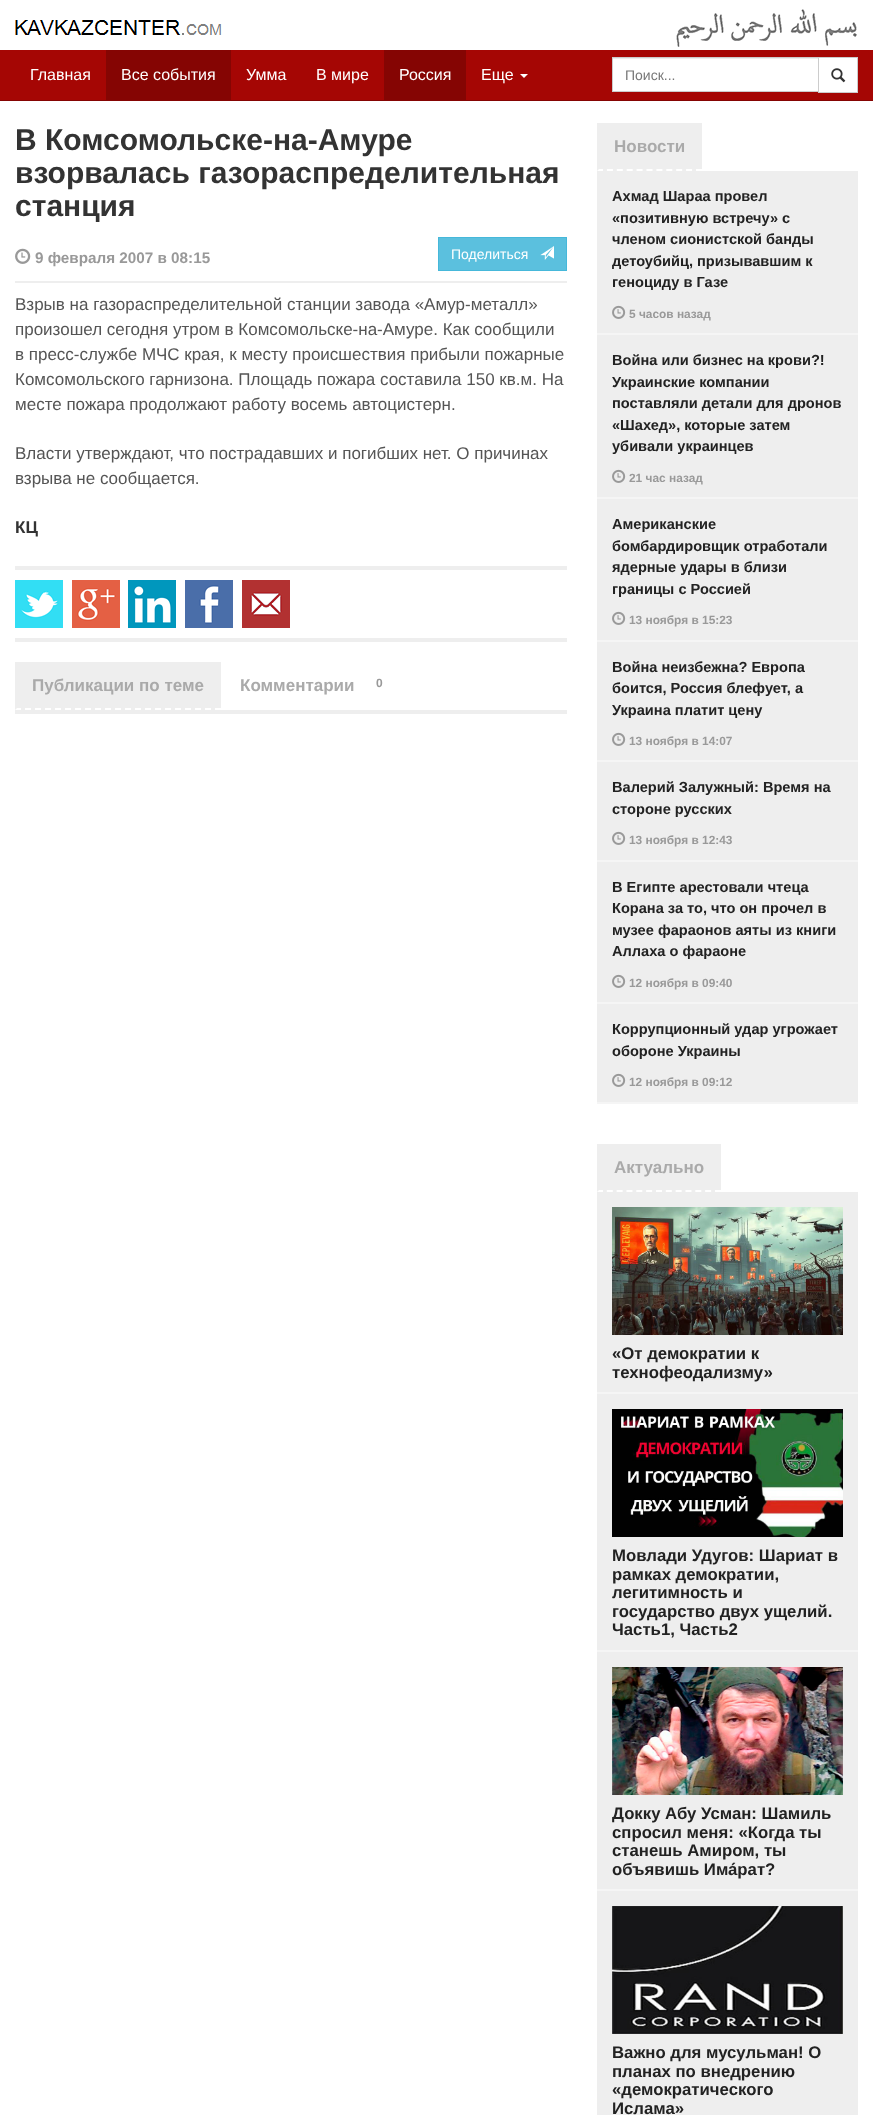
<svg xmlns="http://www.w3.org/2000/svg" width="873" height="2115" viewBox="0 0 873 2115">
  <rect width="100%" height="100%" fill="rgb(255,255,255)"/>
  <image x="15" y="20" width="207" height="15" href="pic1.png"/>
  <image x="676" y="9" width="181" height="38" href="pic2.png"/>
  <rect x="0" y="50" width="873" height="50" fill="rgb(165,6,4)"/>
  <rect x="0" y="100" width="873" height="1" fill="rgb(133,5,3)"/>
  <text x="30" y="80" font-family="Liberation Sans" font-size="16" fill="rgb(255,255,255)">Главная</text>
  <rect x="106" y="50" width="125" height="50" fill="rgb(133,5,3)"/>
  <g font-family="Liberation Sans" font-size="16" fill="rgb(255,255,255)">
    <text x="121" y="80">Все события</text>
    <text x="246" y="80">Умма</text>
    <text x="316" y="80">В мире</text>
  </g>
  <rect x="384" y="50" width="82" height="50" fill="rgb(133,5,3)"/>
  <g font-family="Liberation Sans" font-size="16" fill="rgb(255,255,255)">
    <text x="399" y="80">Россия</text>
    <text x="481" y="80">Еще</text>
  </g>
  <path d="M520 74H528L524 78Z" fill="rgb(255,255,255)"/>
  <rect x="613" y="59" width="205" height="32" fill="rgb(255,255,255)"/>
  <rect x="613" y="58" width="205" height="1" fill="rgb(236,236,236)"/>
  <rect x="818.5" y="57.5" width="39" height="35" fill="rgb(255,255,255)" stroke="rgb(204,204,204)"/>
  <rect x="612.5" y="57.5" width="206" height="34" fill="none" stroke="rgb(204,204,204)"/>
  <text x="625" y="80" font-family="Liberation Sans" font-size="14" fill="rgb(119,119,119)">Поиск...</text>
  <image x="831" y="68" width="15" height="15" href="pic3.png"/>
  <g font-family="Liberation Sans" font-size="30" font-weight="bold" fill="rgb(51,51,51)">
    <text>
      <tspan x="15" y="150">В Комсомольске-на-Амуре</tspan>
      <tspan x="15" y="183">взорвалась газораспределительная</tspan>
      <tspan x="15" y="216">станция</tspan>
    </text>
  </g>
  <image x="15" y="248" width="16" height="16" href="pic4.png"/>
  <text x="35" y="263" font-family="Liberation Sans" font-size="15.25" font-weight="bold" fill="rgb(153,153,153)">9 февраля 2007 в 08:15</text>
  <rect x="438.5" y="237.5" width="128" height="33" fill="rgb(91,192,222)" stroke="rgb(70,184,218)"/>
  <text x="451" y="259" font-family="Liberation Sans" font-size="14" fill="rgb(255,255,255)">Поделиться</text>
  <image x="540" y="246" width="14" height="14" href="pic5.png"/>
  <rect x="15" y="281" width="552" height="2" fill="rgb(238,238,238)"/>
  <g font-family="Liberation Sans" font-size="17" fill="rgb(85,85,85)">
    <text>
      <tspan x="15" y="310">Взрыв на газораспределительной станции завода «Амур-металл»</tspan>
      <tspan x="15" y="335">произошел сегодня утром в Комсомольске-на-Амуре. Как сообщили</tspan>
      <tspan x="15" y="360">в пресс-службе МЧС края, к месту происшествия прибыли пожарные</tspan>
      <tspan x="15" y="385">Комсомольского гарнизона. Площадь пожара составила 150 кв.м. На</tspan>
      <tspan x="15" y="410">месте пожара продолжают работу восемь автоцистерн.</tspan>
    </text>
    <text>
      <tspan x="15" y="459">Власти утверждают, что пострадавших и погибших нет. О причинах</tspan>
      <tspan x="15" y="484">взрыва не сообщается.</tspan>
    </text>
  </g>
  <text x="15" y="533" font-family="Liberation Sans" font-size="17" font-weight="bold" fill="rgb(51,51,51)">КЦ</text>
  <rect x="15" y="566" width="552" height="4" fill="rgb(238,238,238)"/>
  <image x="15" y="580" width="48" height="48" href="pic6.png"/>
  <image x="72" y="580" width="48" height="48" href="pic7.png"/>
  <image x="128" y="580" width="48" height="48" href="pic8.png"/>
  <image x="185" y="580" width="48" height="48" href="pic9.png"/>
  <image x="242" y="580" width="48" height="48" href="pic10.png"/>
  <rect x="15" y="638" width="552" height="4" fill="rgb(238,238,238)"/>
  <rect x="15" y="662" width="206" height="48" fill="rgb(238,238,238)"/>
  <path d="M15 709H221" fill="none" stroke="rgb(255,255,255)" stroke-width="2" stroke-dasharray="6 4"/>
  <path d="M15 710V662L17 664V708Z" fill="rgb(238,238,238)"/>
  <g font-family="Liberation Sans" font-size="17" font-weight="bold" fill="rgb(170,170,170)">
    <text x="32" y="691">Публикации по теме</text>
    <text x="240" y="691">Комментарии</text>
  </g>
  <text x="376" y="687" font-family="Liberation Sans" font-size="12" font-weight="bold" fill="rgb(153,153,153)">0</text>
  <rect x="15" y="710" width="552" height="4" fill="rgb(238,238,238)"/>
  <rect x="597" y="123" width="105" height="48" fill="rgb(238,238,238)"/>
  <path d="M597 170H702" fill="none" stroke="rgb(255,255,255)" stroke-width="2" stroke-dasharray="6 3.9"/>
  <path d="M597 171V123L599 125V169Z" fill="rgb(238,238,238)"/>
  <text x="614" y="152" font-family="Liberation Sans" font-size="17" font-weight="bold" fill="rgb(170,170,170)">Новости</text>
  <rect x="597" y="171" width="261" height="162" fill="rgb(238,238,238)"/>
  <rect x="597" y="333" width="261" height="2" fill="rgb(245,245,245)"/>
  <g font-family="Liberation Sans" font-size="14.6" font-weight="bold" fill="rgb(34,34,34)">
    <text>
      <tspan x="612" y="201">Ахмад Шараа провел</tspan>
      <tspan x="612" y="223">«позитивную встречу» с</tspan>
      <tspan x="612" y="244">членом сионистской банды</tspan>
      <tspan x="612" y="266">детоубийц, призывавшим к</tspan>
      <tspan x="612" y="287">геноциду в Газе</tspan>
    </text>
  </g>
  <image x="612" y="305" width="14" height="14" href="pic11.png"/>
  <text x="629" y="318" font-family="Liberation Sans" font-size="11.9" font-weight="bold" fill="rgb(153,153,153)">5 часов назад</text>
  <rect x="597" y="335" width="261" height="162" fill="rgb(238,238,238)"/>
  <rect x="597" y="497" width="261" height="2" fill="rgb(245,245,245)"/>
  <g font-family="Liberation Sans" font-size="14.6" font-weight="bold" fill="rgb(34,34,34)">
    <text>
      <tspan x="612" y="365">Война или бизнес на крови?!</tspan>
      <tspan x="612" y="387">Украинские компании</tspan>
      <tspan x="612" y="408">поставляли детали для дронов</tspan>
      <tspan x="612" y="430">«Шахед», которые затем</tspan>
      <tspan x="612" y="451">убивали украинцев</tspan>
    </text>
  </g>
  <image x="612" y="469" width="14" height="14" href="pic11.png"/>
  <text x="629" y="482" font-family="Liberation Sans" font-size="11.9" font-weight="bold" fill="rgb(153,153,153)">21 час назад</text>
  <rect x="597" y="499" width="261" height="141" fill="rgb(238,238,238)"/>
  <rect x="597" y="640" width="261" height="2" fill="rgb(245,245,245)"/>
  <g font-family="Liberation Sans" font-size="14.6" font-weight="bold" fill="rgb(34,34,34)">
    <text>
      <tspan x="612" y="529">Американские</tspan>
      <tspan x="612" y="551">бомбардировщик отработали</tspan>
      <tspan x="612" y="572">ядерные удары в близи</tspan>
      <tspan x="612" y="594">границы с Россией</tspan>
    </text>
  </g>
  <image x="612" y="611" width="14" height="14" href="pic11.png"/>
  <text x="629" y="624" font-family="Liberation Sans" font-size="11.9" font-weight="bold" fill="rgb(153,153,153)">13 ноября в 15:23</text>
  <rect x="597" y="642" width="261" height="118" fill="rgb(238,238,238)"/>
  <rect x="597" y="760" width="261" height="2" fill="rgb(245,245,245)"/>
  <g font-family="Liberation Sans" font-size="14.6" font-weight="bold" fill="rgb(34,34,34)">
    <text>
      <tspan x="612" y="672">Война неизбежна? Европа</tspan>
      <tspan x="612" y="693">боится, Россия блефует, а</tspan>
      <tspan x="612" y="715">Украина платит цену</tspan>
    </text>
  </g>
  <image x="612" y="732" width="14" height="14" href="pic11.png"/>
  <text x="629" y="745" font-family="Liberation Sans" font-size="11.9" font-weight="bold" fill="rgb(153,153,153)">13 ноября в 14:07</text>
  <rect x="597" y="762" width="261" height="98" fill="rgb(238,238,238)"/>
  <rect x="597" y="860" width="261" height="2" fill="rgb(245,245,245)"/>
  <g font-family="Liberation Sans" font-size="14.6" font-weight="bold" fill="rgb(34,34,34)">
    <text>
      <tspan x="612" y="792">Валерий Залужный: Время на</tspan>
      <tspan x="612" y="814">стороне русских</tspan>
    </text>
  </g>
  <image x="612" y="831" width="14" height="14" href="pic11.png"/>
  <text x="629" y="844" font-family="Liberation Sans" font-size="11.9" font-weight="bold" fill="rgb(153,153,153)">13 ноября в 12:43</text>
  <rect x="597" y="862" width="261" height="140" fill="rgb(238,238,238)"/>
  <rect x="597" y="1002" width="261" height="2" fill="rgb(245,245,245)"/>
  <g font-family="Liberation Sans" font-size="14.6" font-weight="bold" fill="rgb(34,34,34)">
    <text>
      <tspan x="612" y="892">В Египте арестовали чтеца</tspan>
      <tspan x="612" y="913">Корана за то, что он прочел в</tspan>
      <tspan x="612" y="935">музее фараонов аяты из книги</tspan>
      <tspan x="612" y="956">Аллаха о фараоне</tspan>
    </text>
  </g>
  <image x="612" y="974" width="14" height="14" href="pic11.png"/>
  <text x="629" y="987" font-family="Liberation Sans" font-size="11.9" font-weight="bold" fill="rgb(153,153,153)">12 ноября в 09:40</text>
  <rect x="597" y="1004" width="261" height="98" fill="rgb(238,238,238)"/>
  <rect x="597" y="1102" width="261" height="2" fill="rgb(245,245,245)"/>
  <g font-family="Liberation Sans" font-size="14.6" font-weight="bold" fill="rgb(34,34,34)">
    <text>
      <tspan x="612" y="1034">Коррупционный удар угрожает</tspan>
      <tspan x="612" y="1056">обороне Украины</tspan>
    </text>
  </g>
  <image x="612" y="1073" width="14" height="14" href="pic11.png"/>
  <text x="629" y="1086" font-family="Liberation Sans" font-size="11.9" font-weight="bold" fill="rgb(153,153,153)">12 ноября в 09:12</text>
  <rect x="597" y="1144" width="124" height="48" fill="rgb(238,238,238)"/>
  <path d="M597 1191H721" fill="none" stroke="rgb(255,255,255)" stroke-width="2" stroke-dasharray="6 3.83"/>
  <path d="M597 1192V1144L599 1146V1190Z" fill="rgb(238,238,238)"/>
  <text x="614" y="1173" font-family="Liberation Sans" font-size="17" font-weight="bold" fill="rgb(170,170,170)">Актуально</text>
  <rect x="597" y="1192" width="261" height="200" fill="rgb(238,238,238)"/>
  <rect x="597" y="1392" width="261" height="2" fill="rgb(245,245,245)"/>
  <image x="612" y="1207" width="231" height="128" href="pic12.png"/>
  <g font-family="Liberation Sans" font-size="16.75" font-weight="bold" fill="rgb(34,34,34)">
    <text>
      <tspan x="612" y="1359">«От демократии к</tspan>
      <tspan x="612" y="1378">технофеодализму»</tspan>
    </text>
  </g>
  <rect x="597" y="1394" width="261" height="256" fill="rgb(238,238,238)"/>
  <rect x="597" y="1650" width="261" height="2" fill="rgb(245,245,245)"/>
  <image x="612" y="1409" width="231" height="128" href="pic13.png"/>
  <g font-family="Liberation Sans" font-size="16.75" font-weight="bold" fill="rgb(34,34,34)">
    <text>
      <tspan x="612" y="1561">Мовлади Удугов: Шариат в</tspan>
      <tspan x="612" y="1580">рамках демократии,</tspan>
      <tspan x="612" y="1598">легитимность и</tspan>
      <tspan x="612" y="1617">государство двух ущелий.</tspan>
      <tspan x="612" y="1635">Часть1, Часть2</tspan>
    </text>
  </g>
  <rect x="597" y="1652" width="261" height="237" fill="rgb(238,238,238)"/>
  <rect x="597" y="1889" width="261" height="2" fill="rgb(245,245,245)"/>
  <image x="612" y="1667" width="231" height="128" href="pic14.png"/>
  <g font-family="Liberation Sans" font-size="16.75" font-weight="bold" fill="rgb(34,34,34)">
    <text>
      <tspan x="612" y="1819">Докку Абу Усман: Шамиль</tspan>
      <tspan x="612" y="1838">спросил меня: «Когда ты</tspan>
      <tspan x="612" y="1856">станешь Амиром, ты</tspan>
      <tspan x="612" y="1875">объявишь Има́рат?</tspan>
    </text>
  </g>
  <rect x="597" y="1891" width="261" height="224" fill="rgb(238,238,238)"/>
  <image x="612" y="1906" width="231" height="128" href="pic15.png"/>
  <g font-family="Liberation Sans" font-size="16.75" font-weight="bold" fill="rgb(34,34,34)">
    <text>
      <tspan x="612" y="2058">Важно для мусульман! О</tspan>
      <tspan x="612" y="2077">планах по внедрению</tspan>
      <tspan x="612" y="2095">«демократического</tspan>
      <tspan x="612" y="2114">Ислама»</tspan>
    </text>
  </g>
</svg>
